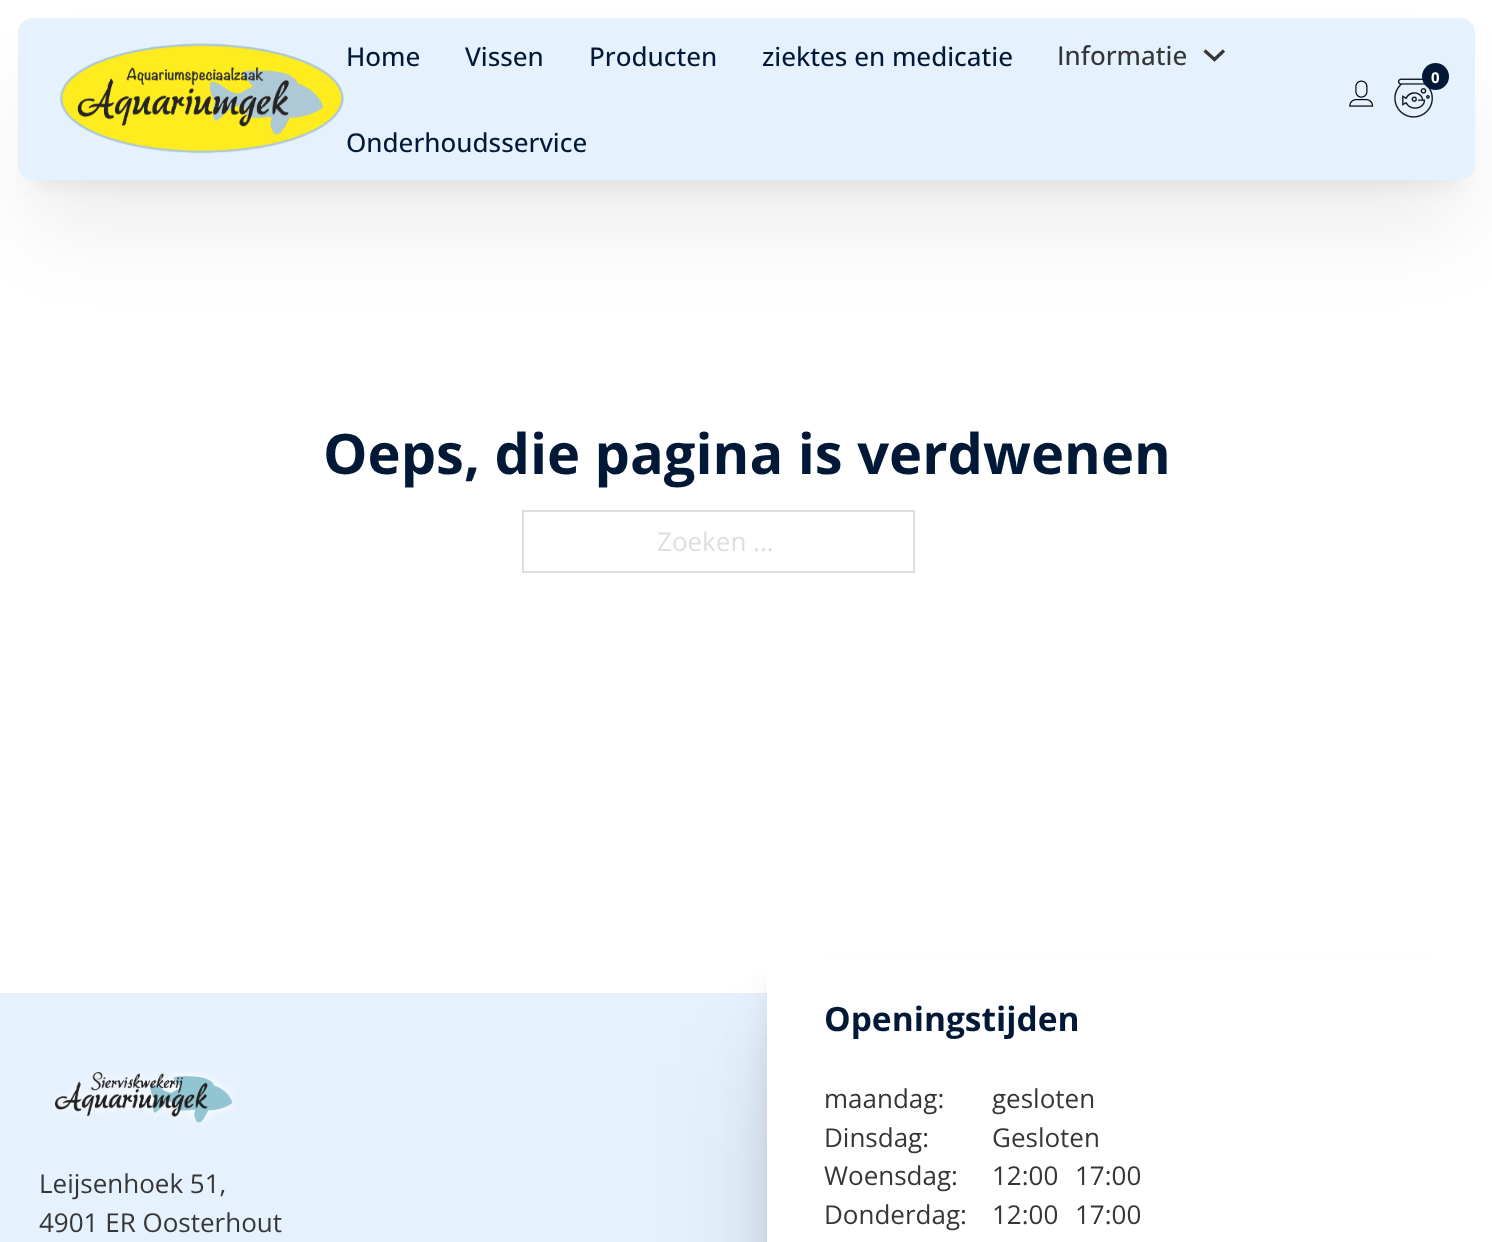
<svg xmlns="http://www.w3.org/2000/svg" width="1492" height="1242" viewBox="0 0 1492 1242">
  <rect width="100%" height="100%" fill="rgb(255,255,255)"/>
  <rect x="33" y="93" width="1427" height="132" fill="rgba(0,0,0,0.08)" filter="blur(45px)"/>
  <rect x="33" y="53" width="1427" height="132" fill="rgba(0,0,0,0.06)" filter="blur(10px)"/>
  <rect x="18" y="18" width="1457" height="162" rx="15" fill="rgb(230,241,254)"/>
  <image x="60" y="43" width="284" height="111" href="pic1.png"/>
  <g font-family="Open Sans" font-size="26" font-weight="500" fill="rgb(1,25,54)">
    <text x="346" y="66">Home</text>
    <text x="465" y="66">Vissen</text>
    <text x="589" y="66">Producten</text>
    <text x="762" y="66">ziektes en medicatie</text>
  </g>
  <text x="1057" y="65" font-family="Open Sans" font-size="26" font-weight="500" fill="rgb(54,54,54)">Informatie</text>
  <path d="M1204.5 50.5L1214.5 59.5L1224 50.5" fill="none" stroke="rgb(54,54,54)" stroke-width="3.2"/>
  <text x="346" y="152" font-family="Open Sans" font-size="26" font-weight="500" fill="rgb(1,25,54)">Onderhoudsservice</text>
  <image x="1394" y="78" width="39" height="40" href="pic2.png"/>
  <circle cx="1435.5" cy="76.5" r="13.5" fill="rgb(1,25,54)"/>
  <text x="1431" y="83" font-family="Open Sans" font-size="15" font-weight="bold" fill="rgb(255,255,255)">0</text>
  <image x="1349" y="80" width="25" height="27" href="pic3.png"/>
  <text x="323" y="474" font-family="Open Sans" font-size="56" font-weight="bold" fill="rgb(1,25,54)">Oeps, die pagina is verdwenen</text>
  <rect x="523" y="511" width="391" height="61" fill="none" stroke="rgb(221,222,223)" stroke-width="2"/>
  <text x="657" y="551" font-family="Open Sans" font-size="26" fill="rgb(221,222,223)">Zoeken ...</text>
  <rect x="0" y="993" width="767" height="249" fill="rgb(230,241,254)"/>
  <image x="53" y="1071" width="182" height="54" href="pic4.png"/>
  <g font-family="Open Sans" font-size="26" fill="rgb(54,54,54)">
    <text>
      <tspan x="39" y="1193">Leijsenhoek 51,</tspan>
      <tspan x="39" y="1232">4901 ER Oosterhout</tspan>
    </text>
  </g>
  <rect x="774" y="1070" width="711" height="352" fill="rgba(0,0,0,0.11)" filter="blur(60px)"/>
  <rect x="774" y="1013" width="711" height="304" fill="rgba(0,0,0,0.1)" filter="blur(25px)"/>
  <rect x="774" y="983" width="711" height="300" fill="rgba(0,0,0,0.08)" filter="blur(13.5px)"/>
  <rect x="767" y="961" width="725" height="281" fill="rgb(255,255,255)"/>
  <text x="824" y="1031" font-family="Open Sans" font-size="33.5" font-weight="bold" fill="rgb(1,25,54)">Openingstijden</text>
  <g font-family="Open Sans" font-size="26" fill="rgb(54,54,54)">
    <text x="824" y="1108">maandag:</text>
    <text x="992" y="1108">gesloten</text>
    <text x="824" y="1147">Dinsdag:</text>
    <text x="992" y="1147">Gesloten</text>
    <text x="824" y="1185">Woensdag:</text>
    <text x="992" y="1185">12:00</text>
    <text x="1075" y="1185">17:00</text>
    <text x="824" y="1224">Donderdag:</text>
    <text x="992" y="1224">12:00</text>
    <text x="1075" y="1224">17:00</text>
  </g>
</svg>
